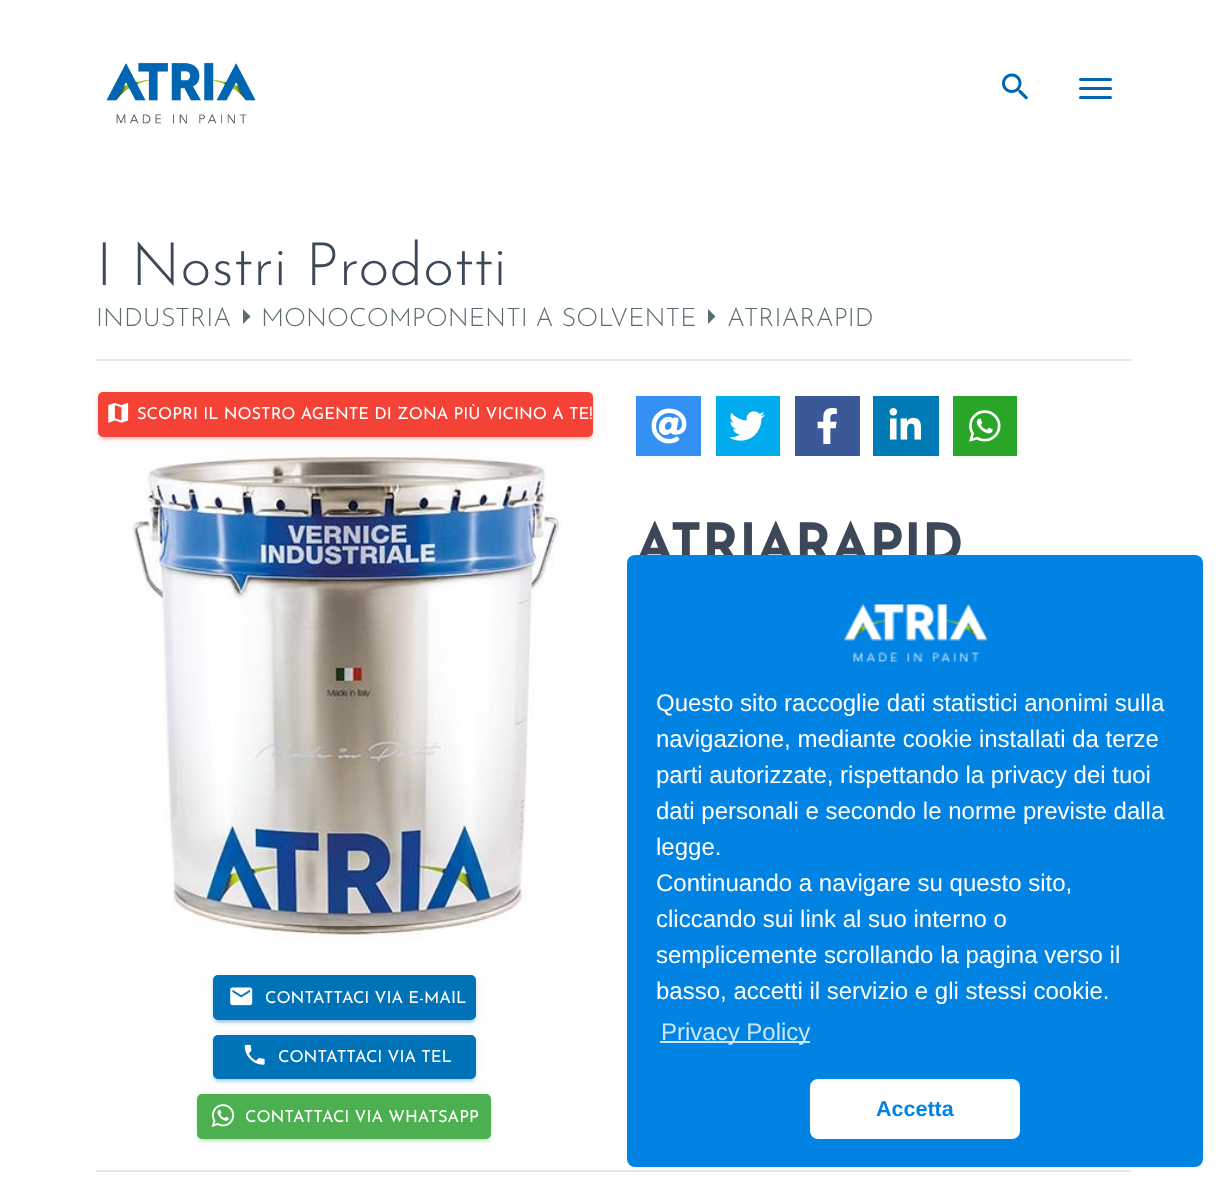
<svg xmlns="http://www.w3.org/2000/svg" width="1226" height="1190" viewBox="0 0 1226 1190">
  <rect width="100%" height="100%" fill="rgb(255,255,255)"/>
  <image x="106" y="62" width="150" height="62" href="pic1.png"/>
  <image x="1002" y="73" width="27" height="27" href="pic2.png"/>
  <rect x="1079" y="78" width="33" height="3" rx="1.5" fill="rgb(0,102,178)"/>
  <rect x="1079" y="87" width="33" height="3" rx="1.5" fill="rgb(0,102,178)"/>
  <rect x="1079" y="96" width="33" height="3" rx="1.5" fill="rgb(0,102,178)"/>
  <text x="96" y="285" font-family="Josefin Sans" font-size="60" font-weight="300" fill="rgb(60,72,88)">I Nostri Prodotti</text>
  <text x="96" y="326" font-family="Josefin Sans" font-size="25.5" font-weight="300" fill="rgb(90,108,113)">INDUSTRIA</text>
  <path d="M243 324V309L250.5 316.5Z" fill="rgb(90,108,113)"/>
  <text x="261" y="326" font-family="Josefin Sans" font-size="25.5" font-weight="300" fill="rgb(90,108,113)">MONOCOMPONENTI A SOLVENTE</text>
  <path d="M708 324V309L715.5 316.5Z" fill="rgb(90,108,113)"/>
  <text x="727" y="326" font-family="Josefin Sans" font-size="25.5" font-weight="300" fill="rgb(90,108,113)">ATRIARAPID</text>
  <rect x="96" y="359" width="1035" height="2" fill="rgb(230,230,230)"/>
  <image x="132" y="449" width="430" height="490" href="pic4.png"/>
  <rect x="98" y="393" width="495" height="45" rx="5" fill="rgba(244,67,54,0.12)" filter="blur(4px)"/>
  <rect x="101" y="399" width="489" height="39" rx="1.5" fill="rgba(244,67,54,0.2)" filter="blur(1px)"/>
  <rect x="98" y="395" width="495" height="45" rx="5" fill="rgba(244,67,54,0.14)" filter="blur(1.5px)"/>
  <rect x="98" y="392" width="495" height="45" rx="5" fill="rgb(244,67,54)"/>
  <image x="108" y="402" width="21" height="21" href="pic3.png"/>
  <text x="137" y="419" font-family="Josefin Sans" font-size="16.5" fill="rgb(255,255,255)">SCOPRI IL NOSTRO AGENTE DI ZONA PIÙ VICINO A TE!</text>
  <rect x="213" y="977" width="263" height="45" rx="5" fill="rgba(0,115,184,0.12)" filter="blur(4px)"/>
  <rect x="216" y="983" width="257" height="39" rx="1.5" fill="rgba(0,115,184,0.2)" filter="blur(1px)"/>
  <rect x="213" y="978" width="263" height="45" rx="5" fill="rgba(0,115,184,0.14)" filter="blur(1.5px)"/>
  <rect x="213" y="975" width="263" height="45" rx="5" fill="rgb(0,115,184)"/>
  <image x="230" y="987" width="23" height="19" href="pic5.png"/>
  <text x="265" y="1003" font-family="Josefin Sans" font-size="16.5" fill="rgb(255,255,255)">CONTATTACI VIA E-MAIL</text>
  <rect x="213" y="1037" width="263" height="43" rx="5" fill="rgba(0,115,184,0.12)" filter="blur(4px)"/>
  <rect x="216" y="1043" width="257" height="37" rx="1.5" fill="rgba(0,115,184,0.2)" filter="blur(1px)"/>
  <rect x="213" y="1038" width="263" height="44" rx="5" fill="rgba(0,115,184,0.14)" filter="blur(1.5px)"/>
  <rect x="213" y="1035" width="263" height="44" rx="5" fill="rgb(0,115,184)"/>
  <image x="244" y="1044" width="21" height="21" href="pic6.png"/>
  <text x="278" y="1062" font-family="Josefin Sans" font-size="16.5" fill="rgb(255,255,255)">CONTATTACI VIA TEL</text>
  <rect x="197" y="1095" width="294" height="45" rx="5" fill="rgba(76,175,80,0.12)" filter="blur(4px)"/>
  <rect x="200" y="1101" width="288" height="39" rx="1.5" fill="rgba(76,175,80,0.2)" filter="blur(1px)"/>
  <rect x="197" y="1097" width="294" height="45" rx="5" fill="rgba(76,175,80,0.14)" filter="blur(1.5px)"/>
  <rect x="197" y="1094" width="294" height="45" rx="5" fill="rgb(76,175,80)"/>
  <image x="211" y="1104" width="24" height="23" href="pic7.png"/>
  <text x="245" y="1122" font-family="Josefin Sans" font-size="16.5" fill="rgb(255,255,255)">CONTATTACI VIA WHATSAPP</text>
  <rect x="636" y="396" width="65" height="60" fill="rgb(52,144,243)"/>
  <image x="651" y="408" width="36" height="36" href="pic8.png"/>
  <rect x="716" y="396" width="64" height="60" fill="rgb(0,172,237)"/>
  <image x="729" y="411" width="36" height="30" href="pic9.png"/>
  <rect x="795" y="396" width="65" height="60" fill="rgb(59,89,152)"/>
  <image x="817" y="408" width="20" height="36" href="pic10.png"/>
  <rect x="873" y="396" width="66" height="60" fill="rgb(0,123,182)"/>
  <image x="889" y="408" width="32" height="32" href="pic11.png"/>
  <rect x="953" y="396" width="64" height="60" fill="rgb(41,166,40)"/>
  <image x="969" y="410" width="32" height="32" href="pic12.png"/>
  <text x="636" y="562" font-family="Josefin Sans" font-size="54" font-weight="bold" fill="rgb(60,72,88)">ATRIARAPID</text>
  <rect x="96" y="1170" width="1035" height="2" fill="rgb(230,230,230)"/>
  <rect x="627" y="555" width="576" height="612" rx="8" fill="rgb(1,131,228)"/>
  <image x="844" y="604" width="143" height="58" href="pic13.png"/>
  <g font-family="Liberation Sans" font-size="24" fill="rgb(255,255,255)">
    <text>
      <tspan x="656" y="711">Questo sito raccoglie dati statistici anonimi sulla</tspan>
      <tspan x="656" y="747">navigazione, mediante cookie installati da terze</tspan>
      <tspan x="656" y="783">parti autorizzate, rispettando la privacy dei tuoi</tspan>
      <tspan x="656" y="819">dati personali e secondo le norme previste dalla</tspan>
      <tspan x="656" y="855">legge.</tspan>
      <tspan x="656" y="891">Continuando a navigare su questo sito,</tspan>
      <tspan x="656" y="927">cliccando sui link al suo interno o</tspan>
      <tspan x="656" y="963">semplicemente scrollando la pagina verso il</tspan>
      <tspan x="656" y="999">basso, accetti il servizio e gli stessi cookie.</tspan>
    </text>
  </g>
  <rect x="660" y="1041" width="150" height="2" fill="rgb(204,230,250)"/>
  <text x="661" y="1040" font-family="Liberation Sans" font-size="24" fill="rgb(204,230,250)">Privacy Policy</text>
  <rect x="810" y="1079" width="210" height="60" rx="8" fill="rgb(255,255,255)"/>
  <text x="876" y="1116" font-family="Liberation Sans" font-size="21.5" font-weight="bold" fill="rgb(1,131,228)">Accetta</text>
</svg>
